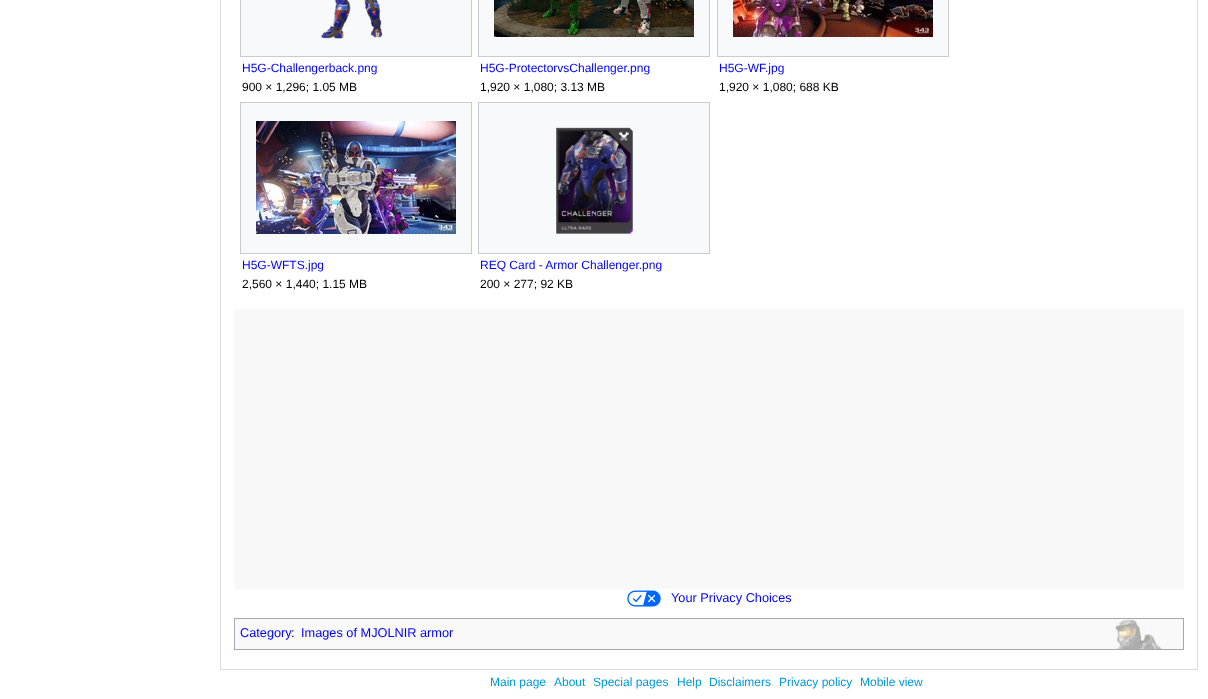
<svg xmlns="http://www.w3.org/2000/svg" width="1208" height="699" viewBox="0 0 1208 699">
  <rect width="100%" height="100%" fill="rgb(255,255,255)"/>
  <rect x="220.5" y="-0.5" width="977" height="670" fill="none" stroke="rgb(212,223,215)"/>
  <rect x="240.5" y="-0.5" width="231" height="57" fill="rgb(248,249,250)" stroke="rgb(200,204,209)"/>
  <image x="320" y="0" width="63" height="39" href="pic1.png"/>
  <text x="242" y="72" font-family="Liberation Sans" font-size="12" fill="rgb(0,0,255)">H5G-Challengerback.png</text>
  <text x="242" y="91" font-family="Liberation Sans" font-size="12" fill="rgb(0,0,0)">900 × 1,296; 1.05 MB</text>
  <rect x="478.5" y="-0.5" width="231" height="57" fill="rgb(248,249,250)" stroke="rgb(200,204,209)"/>
  <image x="494" y="0" width="200" height="37" href="pic2.png"/>
  <text x="480" y="72" font-family="Liberation Sans" font-size="12" fill="rgb(0,0,255)">H5G-ProtectorvsChallenger.png</text>
  <text x="480" y="91" font-family="Liberation Sans" font-size="12" fill="rgb(0,0,0)">1,920 × 1,080; 3.13 MB</text>
  <rect x="717.5" y="-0.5" width="231" height="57" fill="rgb(248,249,250)" stroke="rgb(200,204,209)"/>
  <image x="733" y="0" width="200" height="37" href="pic3.png"/>
  <text x="719" y="72" font-family="Liberation Sans" font-size="12" fill="rgb(0,0,255)">H5G-WF.jpg</text>
  <text x="719" y="91" font-family="Liberation Sans" font-size="12" fill="rgb(0,0,0)">1,920 × 1,080; 688 KB</text>
  <rect x="240.5" y="102.5" width="231" height="151" fill="rgb(248,249,250)" stroke="rgb(200,204,209)"/>
  <image x="256" y="121" width="200" height="113" href="pic4.png"/>
  <text x="242" y="269" font-family="Liberation Sans" font-size="12" fill="rgb(0,0,255)">H5G-WFTS.jpg</text>
  <text x="242" y="288" font-family="Liberation Sans" font-size="12" fill="rgb(0,0,0)">2,560 × 1,440; 1.15 MB</text>
  <rect x="478.5" y="102.5" width="231" height="151" fill="rgb(248,249,250)" stroke="rgb(200,204,209)"/>
  <image x="556" y="127" width="77" height="107" href="pic5.png"/>
  <text x="480" y="269" font-family="Liberation Sans" font-size="12" fill="rgb(0,0,255)">REQ Card - Armor Challenger.png</text>
  <text x="480" y="288" font-family="Liberation Sans" font-size="12" fill="rgb(0,0,0)">200 × 277; 92 KB</text>
  <rect x="234" y="309" width="950" height="280" fill="rgb(248,248,248)"/>
  <image x="627" y="590" width="34" height="17" href="pic6.png"/>
  <text x="671" y="602" font-family="Liberation Sans" font-size="12.75" fill="rgb(0,0,255)">Your Privacy Choices</text>
  <rect x="235" y="619" width="948" height="30" fill="rgb(249,249,249)"/>
  <image x="1112" y="619" width="52" height="30" href="pic7.png"/>
  <rect x="234.5" y="618.5" width="949" height="31" fill="none" stroke="rgb(162,169,177)"/>
  <text x="240" y="637" font-family="Liberation Sans" font-size="12.75" fill="rgb(0,0,255)">Category</text>
  <text x="291" y="637" font-family="Liberation Sans" font-size="12.75" fill="rgb(0,0,0)">:</text>
  <text x="301" y="637" font-family="Liberation Sans" font-size="12.75" fill="rgb(0,0,255)">Images of MJOLNIR armor</text>
  <g font-family="Liberation Sans" font-size="12" fill="rgb(0,153,217)">
    <text x="490" y="686">Main page</text>
    <text x="554" y="686">About</text>
    <text x="593" y="686">Special pages</text>
    <text x="677" y="686">Help</text>
    <text x="709" y="686">Disclaimers</text>
    <text x="779" y="686">Privacy policy</text>
    <text x="860" y="686">Mobile view</text>
  </g>
</svg>
